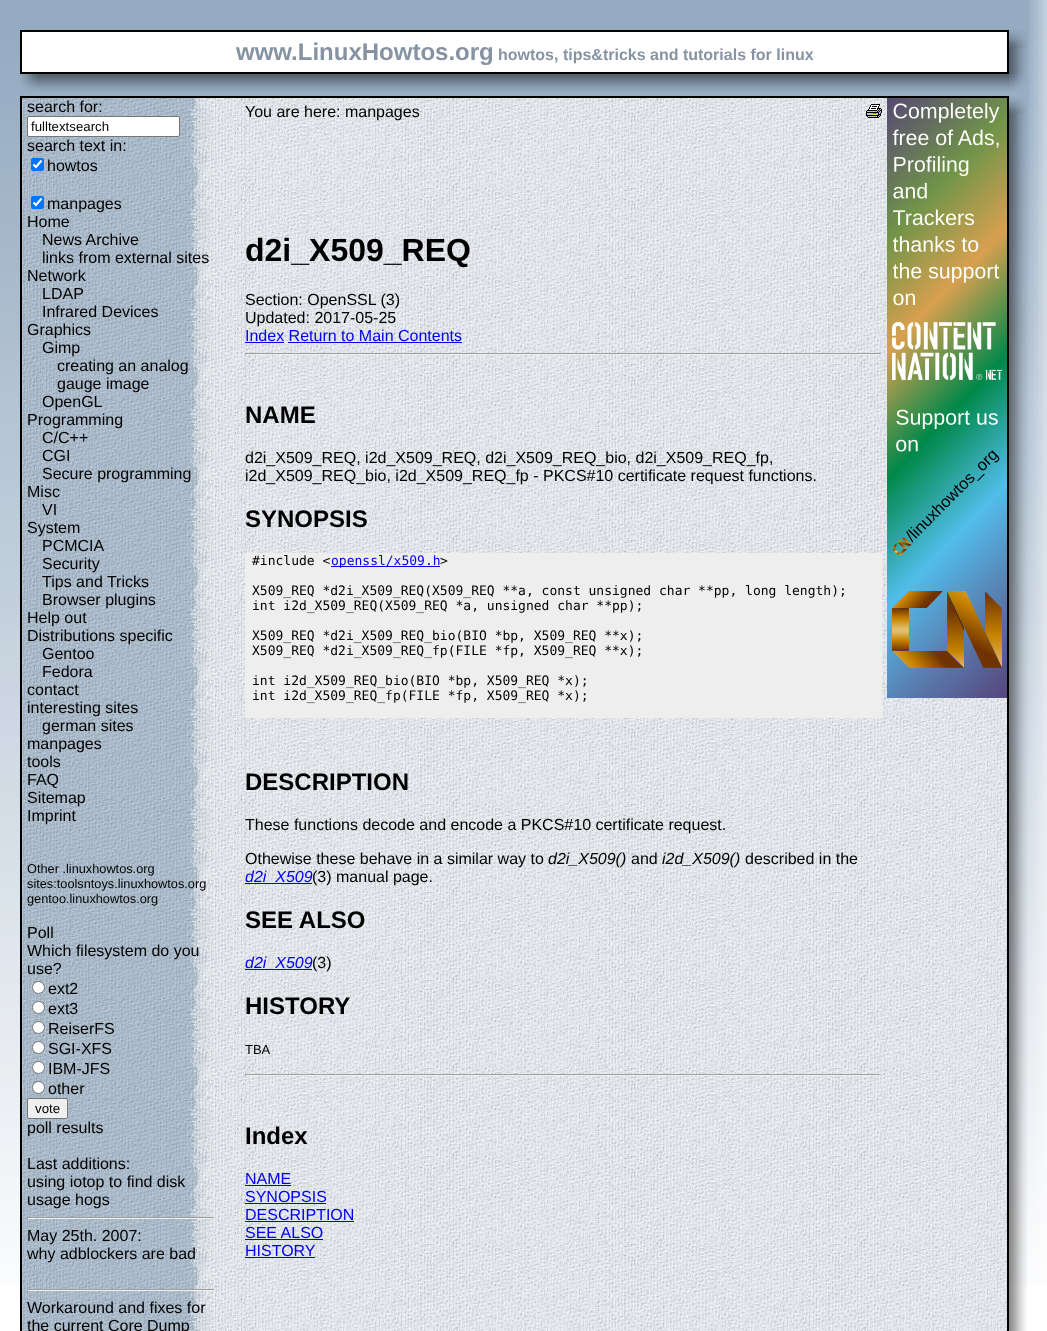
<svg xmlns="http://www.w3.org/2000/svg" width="1047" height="1331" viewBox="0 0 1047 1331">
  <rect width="100%" height="100%" fill="rgb(255,255,255)"/>
  <image x="0" y="0" width="1047" height="1285" href="pic1.png"/>
  <rect x="21" y="31" width="987" height="42" fill="rgb(255,255,255)" stroke="rgb(0,0,0)" stroke-width="2"/>
  <text x="236" y="60" font-family="Liberation Sans" font-size="24" font-weight="bold" fill="rgb(134,147,162)">www.LinuxHowtos.org</text>
  <text x="498" y="60" font-family="Liberation Sans" font-size="16" font-weight="bold" fill="rgb(134,147,162)">howtos, tips&amp;tricks and tutorials for linux</text>
  <image x="1009" y="48" width="18" height="4" href="pic2.png"/>
  <image x="1009" y="30" width="18" height="18" href="pic3.png"/>
  <image x="1009" y="52" width="18" height="22" href="pic4.png"/>
  <image x="20" y="74" width="18" height="18" href="pic5.png"/>
  <image x="38" y="74" width="971" height="19" href="pic6.png"/>
  <image x="1009" y="74" width="18" height="18" href="pic7.png"/>
  <image x="245" y="98" width="762" height="1233" href="pic8.png"/>
  <rect x="21" y="97" width="987" height="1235" fill="none" stroke="rgb(0,0,0)" stroke-width="2"/>
  <image x="22" y="98" width="223" height="1233" href="pic9.png"/>
  <text x="27" y="112" font-family="Liberation Sans" font-size="16" fill="rgb(0,0,0)">search for:</text>
  <rect x="27.5" y="116.5" width="152" height="20" rx="1.5" fill="rgb(255,255,255)" stroke="rgb(118,118,118)"/>
  <text x="31" y="131" font-family="Liberation Sans" font-size="13.25" fill="rgb(0,0,0)">fulltextsearch</text>
  <text x="27" y="151" font-family="Liberation Sans" font-size="16" fill="rgb(0,0,0)">search text in:</text>
  <rect x="31" y="158" width="13" height="13" rx="2" fill="rgb(0,117,255)"/>
  <path d="M33.5 164.5L36 167L41.5 160.5" fill="none" stroke="rgb(255,255,255)" stroke-width="2.1"/>
  <text x="47" y="171" font-family="Liberation Sans" font-size="16" fill="rgb(0,0,0)">howtos</text>
  <rect x="31" y="196" width="13" height="13" rx="2" fill="rgb(0,117,255)"/>
  <path d="M33.5 202.5L36 205L41.5 198.5" fill="none" stroke="rgb(255,255,255)" stroke-width="2.1"/>
  <g font-family="Liberation Sans" font-size="16" fill="rgb(0,0,0)">
    <text x="47" y="209">manpages</text>
    <text x="27" y="227">Home</text>
    <text>
      <tspan x="42" y="245">News Archive</tspan>
      <tspan x="42" y="263">links from external sites</tspan>
    </text>
    <text x="27" y="281">Network</text>
    <text>
      <tspan x="42" y="299">LDAP</tspan>
      <tspan x="42" y="317">Infrared Devices</tspan>
    </text>
    <text x="27" y="335">Graphics</text>
    <text x="42" y="353">Gimp</text>
    <text>
      <tspan x="57" y="371">creating an analog</tspan>
      <tspan x="57" y="389">gauge image</tspan>
    </text>
    <text x="42" y="407">OpenGL</text>
    <text x="27" y="425">Programming</text>
    <text>
      <tspan x="42" y="443">C/C++</tspan>
      <tspan x="42" y="461">CGI</tspan>
      <tspan x="42" y="479">Secure programming</tspan>
    </text>
    <text x="27" y="497">Misc</text>
    <text x="42" y="515">VI</text>
    <text x="27" y="533">System</text>
    <text>
      <tspan x="42" y="551">PCMCIA</tspan>
      <tspan x="42" y="569">Security</tspan>
      <tspan x="42" y="587">Tips and Tricks</tspan>
      <tspan x="42" y="605">Browser plugins</tspan>
    </text>
    <text>
      <tspan x="27" y="623">Help out</tspan>
      <tspan x="27" y="641">Distributions specific</tspan>
    </text>
    <text>
      <tspan x="42" y="659">Gentoo</tspan>
      <tspan x="42" y="677">Fedora</tspan>
    </text>
    <text>
      <tspan x="27" y="695">contact</tspan>
      <tspan x="27" y="713">interesting sites</tspan>
    </text>
    <text x="42" y="731">german sites</text>
    <text>
      <tspan x="27" y="749">manpages</tspan>
      <tspan x="27" y="767">tools</tspan>
      <tspan x="27" y="785">FAQ</tspan>
      <tspan x="27" y="803">Sitemap</tspan>
      <tspan x="27" y="821">Imprint</tspan>
    </text>
  </g>
  <g font-family="Liberation Sans" font-size="12.75" fill="rgb(0,0,0)">
    <text>
      <tspan x="27" y="873">Other .linuxhowtos.org</tspan>
      <tspan x="27" y="888">sites:toolsntoys.linuxhowtos.org</tspan>
      <tspan x="27" y="903">gentoo.linuxhowtos.org</tspan>
    </text>
  </g>
  <g font-family="Liberation Sans" font-size="16" fill="rgb(0,0,0)">
    <text>
      <tspan x="27" y="938">Poll</tspan>
      <tspan x="27" y="956">Which filesystem do you</tspan>
      <tspan x="27" y="974">use?</tspan>
    </text>
  </g>
  <circle cx="38.5" cy="987.5" r="6" fill="rgb(255,255,255)" stroke="rgb(118,118,118)"/>
  <text x="48" y="994" font-family="Liberation Sans" font-size="16" fill="rgb(0,0,0)">ext2</text>
  <circle cx="38.5" cy="1007.5" r="6" fill="rgb(255,255,255)" stroke="rgb(118,118,118)"/>
  <text x="48" y="1014" font-family="Liberation Sans" font-size="16" fill="rgb(0,0,0)">ext3</text>
  <circle cx="38.5" cy="1027.5" r="6" fill="rgb(255,255,255)" stroke="rgb(118,118,118)"/>
  <text x="48" y="1034" font-family="Liberation Sans" font-size="16" fill="rgb(0,0,0)">ReiserFS</text>
  <circle cx="38.5" cy="1047.5" r="6" fill="rgb(255,255,255)" stroke="rgb(118,118,118)"/>
  <text x="48" y="1054" font-family="Liberation Sans" font-size="16" fill="rgb(0,0,0)">SGI-XFS</text>
  <circle cx="38.5" cy="1067.5" r="6" fill="rgb(255,255,255)" stroke="rgb(118,118,118)"/>
  <text x="48" y="1074" font-family="Liberation Sans" font-size="16" fill="rgb(0,0,0)">IBM-JFS</text>
  <circle cx="38.5" cy="1087.5" r="6" fill="rgb(255,255,255)" stroke="rgb(118,118,118)"/>
  <text x="48" y="1094" font-family="Liberation Sans" font-size="16" fill="rgb(0,0,0)">other</text>
  <rect x="27.5" y="1098.5" width="40" height="20" rx="1.5" fill="rgb(239,239,239)" stroke="rgb(118,118,118)"/>
  <text x="35" y="1113" font-family="Liberation Sans" font-size="13.25" fill="rgb(0,0,0)">vote</text>
  <g font-family="Liberation Sans" font-size="16" fill="rgb(0,0,0)">
    <text x="27" y="1133">poll results</text>
    <text>
      <tspan x="27" y="1169">Last additions:</tspan>
      <tspan x="27" y="1187">using iotop to find disk</tspan>
      <tspan x="27" y="1205">usage hogs</tspan>
    </text>
  </g>
  <rect x="27" y="1217" width="188" height="1" fill="rgb(159,159,159)"/>
  <rect x="214" y="1217" width="1" height="2" fill="rgb(238,238,238)"/>
  <rect x="27" y="1218" width="188" height="1" fill="rgb(238,238,238)"/>
  <rect x="27" y="1217" width="1" height="2" fill="rgb(159,159,159)"/>
  <g font-family="Liberation Sans" font-size="16" fill="rgb(0,0,0)">
    <text>
      <tspan x="27" y="1241">May 25th. 2007:</tspan>
      <tspan x="27" y="1259">why adblockers are bad</tspan>
    </text>
  </g>
  <rect x="27" y="1289" width="188" height="1" fill="rgb(159,159,159)"/>
  <rect x="214" y="1289" width="1" height="2" fill="rgb(238,238,238)"/>
  <rect x="27" y="1290" width="188" height="1" fill="rgb(238,238,238)"/>
  <rect x="27" y="1289" width="1" height="2" fill="rgb(159,159,159)"/>
  <g font-family="Liberation Sans" font-size="16" fill="rgb(0,0,0)">
    <text>
      <tspan x="27" y="1313">Workaround and fixes for</tspan>
      <tspan x="27" y="1331">the current Core Dump</tspan>
    </text>
    <text x="245" y="117">You are here: manpages</text>
  </g>
  <image x="866" y="104" width="16" height="14" href="pic10.png"/>
  <text x="245" y="261" font-family="Liberation Sans" font-size="32" font-weight="bold" fill="rgb(0,0,0)">d2i_X509_REQ</text>
  <g font-family="Liberation Sans" font-size="16" fill="rgb(0,0,0)">
    <text>
      <tspan x="245" y="305">Section: OpenSSL (3)</tspan>
      <tspan x="245" y="323">Updated: 2017-05-25</tspan>
    </text>
  </g>
  <text x="245" y="341" font-family="Liberation Sans" font-size="16" fill="rgb(0,0,238)">Index Return to Main Contents</text>
  <rect x="245" y="342" width="39" height="1" fill="rgb(0,0,238)"/>
  <rect x="288" y="342" width="174" height="1" fill="rgb(0,0,238)"/>
  <rect x="245" y="353" width="637" height="1" fill="rgb(159,159,159)"/>
  <rect x="881" y="353" width="1" height="2" fill="rgb(238,238,238)"/>
  <rect x="245" y="354" width="637" height="1" fill="rgb(238,238,238)"/>
  <rect x="245" y="353" width="1" height="2" fill="rgb(159,159,159)"/>
  <text x="245" y="423" font-family="Liberation Sans" font-size="24" font-weight="bold" fill="rgb(0,0,0)">NAME</text>
  <g font-family="Liberation Sans" font-size="16" fill="rgb(0,0,0)">
    <text>
      <tspan x="245" y="463">d2i_X509_REQ, i2d_X509_REQ, d2i_X509_REQ_bio, d2i_X509_REQ_fp,</tspan>
      <tspan x="245" y="481">i2d_X509_REQ_bio, i2d_X509_REQ_fp - PKCS#10 certificate request functions.</tspan>
    </text>
  </g>
  <text x="245" y="527" font-family="Liberation Sans" font-size="24" font-weight="bold" fill="rgb(0,0,0)">SYNOPSIS</text>
  <rect x="245" y="553" width="637" height="165" fill="rgb(238,238,238)"/>
  <text x="252" y="565" font-family="DejaVu Sans Mono" font-size="13" fill="rgb(0,0,0)">#include &lt;</text>
  <rect x="331" y="566" width="109" height="1" fill="rgb(0,0,238)"/>
  <text x="331" y="565" font-family="DejaVu Sans Mono" font-size="13" fill="rgb(0,0,238)">openssl/x509.h</text>
  <g font-family="DejaVu Sans Mono" font-size="13" fill="rgb(0,0,0)">
    <text x="440" y="565">&gt;</text>
    <text>
      <tspan x="252" y="595">X509_REQ *d2i_X509_REQ(X509_REQ **a, const unsigned char **pp, long length);</tspan>
      <tspan x="252" y="610">int i2d_X509_REQ(X509_REQ *a, unsigned char **pp);</tspan>
    </text>
    <text>
      <tspan x="252" y="640">X509_REQ *d2i_X509_REQ_bio(BIO *bp, X509_REQ **x);</tspan>
      <tspan x="252" y="655">X509_REQ *d2i_X509_REQ_fp(FILE *fp, X509_REQ **x);</tspan>
    </text>
    <text>
      <tspan x="252" y="685">int i2d_X509_REQ_bio(BIO *bp, X509_REQ *x);</tspan>
      <tspan x="252" y="700">int i2d_X509_REQ_fp(FILE *fp, X509_REQ *x);</tspan>
    </text>
  </g>
  <text x="245" y="790" font-family="Liberation Sans" font-size="24" font-weight="bold" fill="rgb(0,0,0)">DESCRIPTION</text>
  <g font-family="Liberation Sans" font-size="16" fill="rgb(0,0,0)">
    <text x="245" y="830">These functions decode and encode a PKCS#10 certificate request.</text>
    <text x="245" y="864">Othewise these behave in a similar way to</text>
  </g>
  <text x="548" y="864" font-family="Liberation Sans" font-size="16" font-style="italic" fill="rgb(0,0,0)">d2i_X509()</text>
  <text x="631" y="864" font-family="Liberation Sans" font-size="16" fill="rgb(0,0,0)">and</text>
  <text x="662" y="864" font-family="Liberation Sans" font-size="16" font-style="italic" fill="rgb(0,0,0)">i2d_X509()</text>
  <text x="745" y="864" font-family="Liberation Sans" font-size="16" fill="rgb(0,0,0)">described in the</text>
  <rect x="245" y="883" width="67" height="1" fill="rgb(0,0,238)"/>
  <text x="245" y="882" font-family="Liberation Sans" font-size="16" font-style="italic" fill="rgb(0,0,238)">d2i_X509</text>
  <text x="312" y="882" font-family="Liberation Sans" font-size="16" fill="rgb(0,0,0)">(3) manual page.</text>
  <text x="245" y="928" font-family="Liberation Sans" font-size="24" font-weight="bold" fill="rgb(0,0,0)">SEE ALSO</text>
  <rect x="245" y="969" width="67" height="1" fill="rgb(0,0,238)"/>
  <text x="245" y="968" font-family="Liberation Sans" font-size="16" font-style="italic" fill="rgb(0,0,238)">d2i_X509</text>
  <text x="312" y="968" font-family="Liberation Sans" font-size="16" fill="rgb(0,0,0)">(3)</text>
  <text x="245" y="1014" font-family="Liberation Sans" font-size="24" font-weight="bold" fill="rgb(0,0,0)">HISTORY</text>
  <text x="245" y="1054" font-family="Liberation Sans" font-size="13" fill="rgb(0,0,0)">TBA</text>
  <rect x="245" y="1074" width="637" height="1" fill="rgb(159,159,159)"/>
  <rect x="881" y="1074" width="1" height="2" fill="rgb(238,238,238)"/>
  <rect x="245" y="1075" width="637" height="1" fill="rgb(238,238,238)"/>
  <rect x="245" y="1074" width="1" height="2" fill="rgb(159,159,159)"/>
  <text x="245" y="1144" font-family="Liberation Sans" font-size="24" font-weight="bold" fill="rgb(0,0,0)">Index</text>
  <text x="245" y="1184" font-family="Liberation Sans" font-size="16" fill="rgb(0,0,238)">NAME</text>
  <rect x="245" y="1185" width="46" height="1" fill="rgb(0,0,238)"/>
  <text x="245" y="1202" font-family="Liberation Sans" font-size="16" fill="rgb(0,0,238)">SYNOPSIS</text>
  <rect x="245" y="1203" width="81" height="1" fill="rgb(0,0,238)"/>
  <text x="245" y="1220" font-family="Liberation Sans" font-size="16" fill="rgb(0,0,238)">DESCRIPTION</text>
  <rect x="245" y="1221" width="109" height="1" fill="rgb(0,0,238)"/>
  <text x="245" y="1238" font-family="Liberation Sans" font-size="16" fill="rgb(0,0,238)">SEE ALSO</text>
  <rect x="245" y="1239" width="78" height="1" fill="rgb(0,0,238)"/>
  <text x="245" y="1256" font-family="Liberation Sans" font-size="16" fill="rgb(0,0,238)">HISTORY</text>
  <rect x="245" y="1257" width="70" height="1" fill="rgb(0,0,238)"/>
  <image x="887" y="98" width="120" height="600" href="pic11.png"/>
  <image x="1009" y="114" width="18" height="4" href="pic12.png"/>
  <image x="1009" y="96" width="18" height="18" href="pic13.png"/>
  <image x="1009" y="118" width="18" height="1213" href="pic14.png"/>
</svg>
